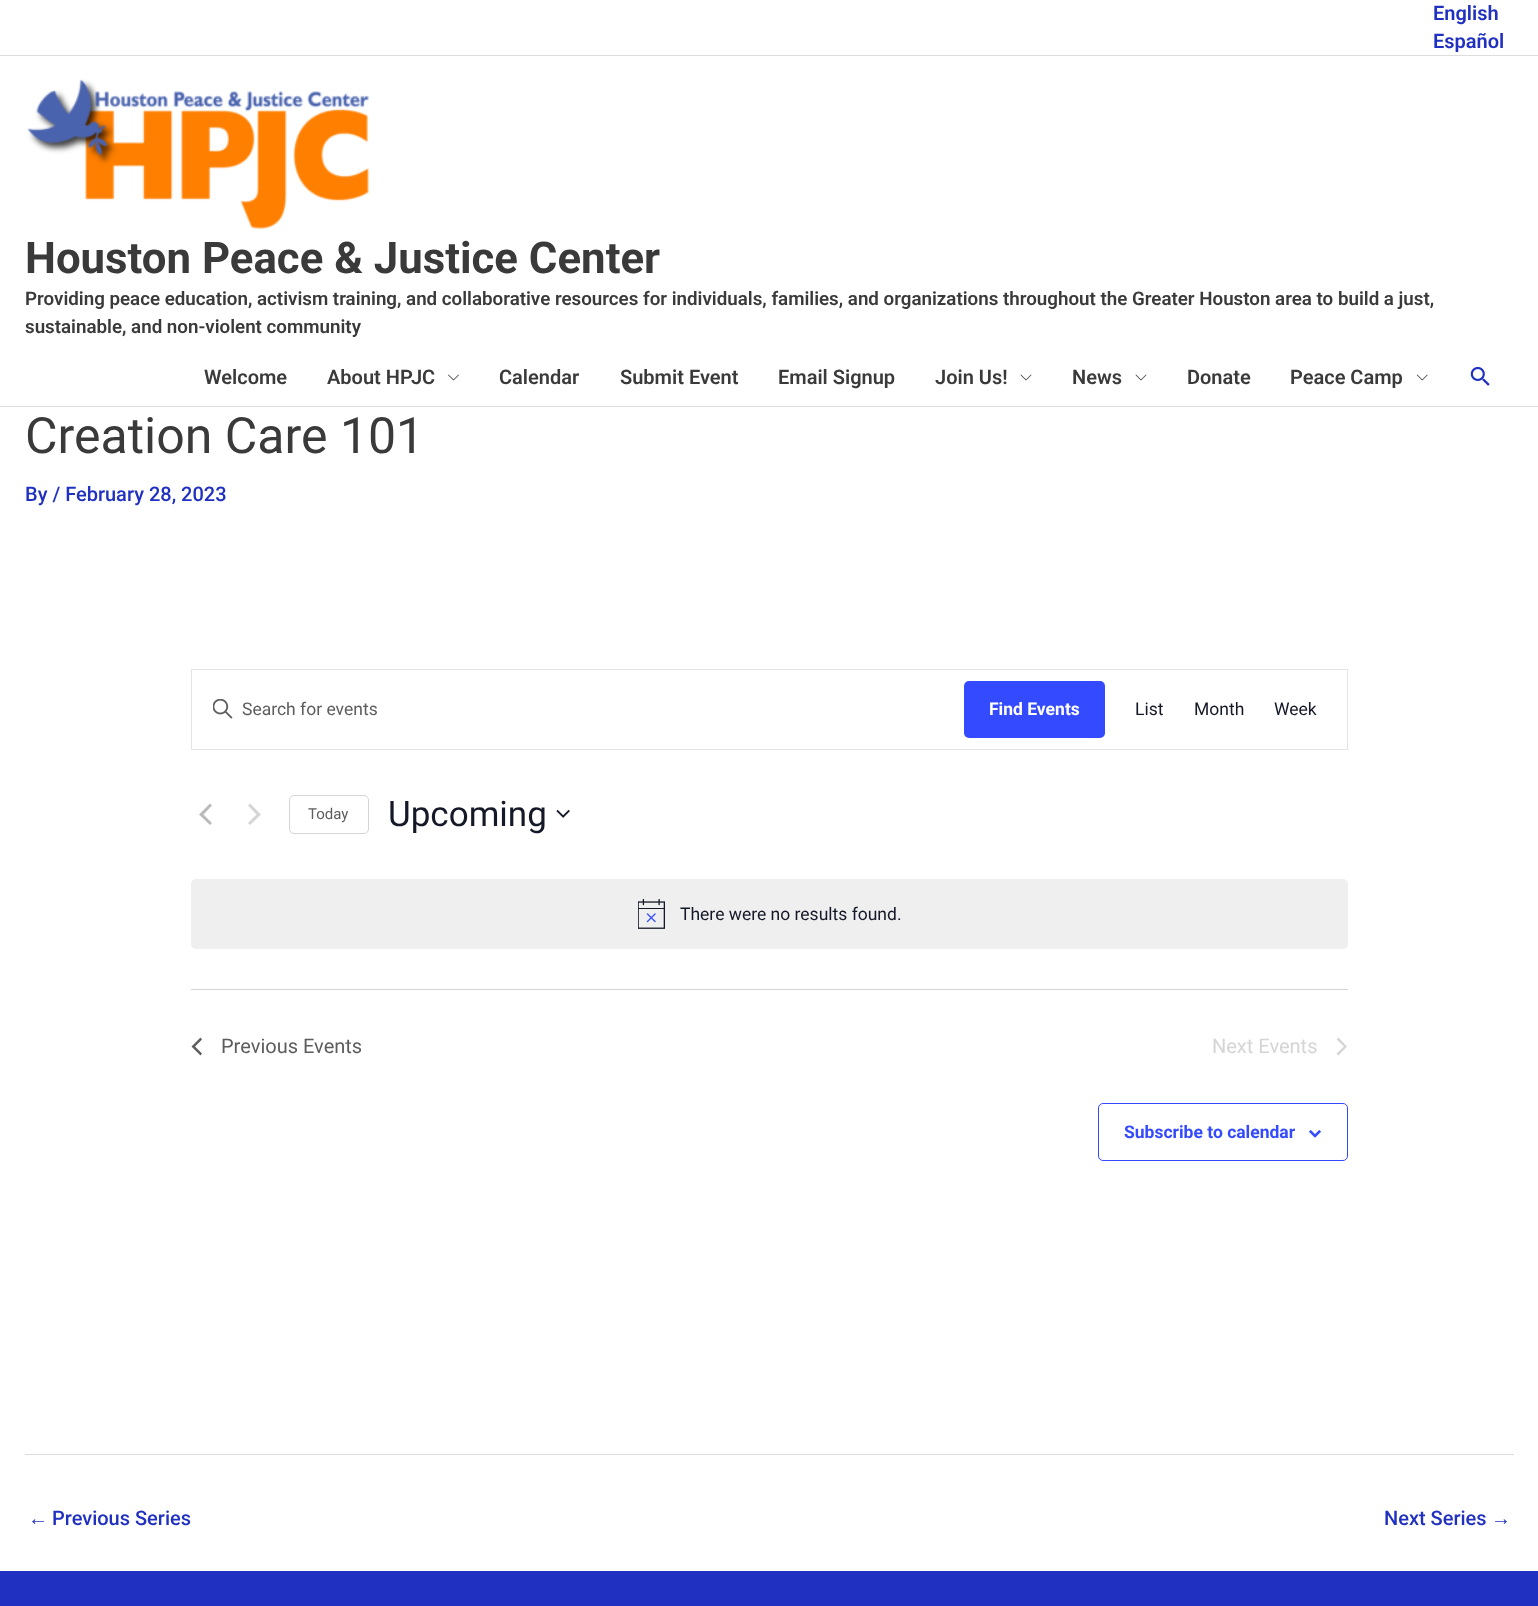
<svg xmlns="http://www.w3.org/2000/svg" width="1538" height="1606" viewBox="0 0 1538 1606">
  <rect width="100%" height="100%" fill="rgb(255,255,255)"/>
  <rect x="0" y="55" width="1538" height="1" fill="rgb(221,221,221)"/>
  <g font-family="Roboto" font-size="20" font-weight="600" fill="rgb(32,48,192)">
    <text>
      <tspan x="1433" y="20">English</tspan>
      <tspan x="1433" y="48">Español</tspan>
    </text>
  </g>
  <rect x="0" y="406" width="1538" height="1" fill="rgb(221,221,221)"/>
  <image x="27" y="79" width="342" height="150" href="pic1.png"/>
  <text x="25" y="273" font-family="Roboto" font-size="43.75" font-weight="bold" fill="rgb(58,58,58)">Houston Peace &amp; Justice Center</text>
  <g font-family="Roboto" font-size="18.75" font-weight="600" fill="rgb(58,58,58)">
    <text>
      <tspan x="25" y="305">Providing peace education, activism training, and collaborative resources for individuals, families, and organizations throughout the Greater Houston area to build a just,</tspan>
      <tspan x="25" y="333">sustainable, and non-violent community</tspan>
    </text>
  </g>
  <g font-family="Roboto" font-size="20" font-weight="600" fill="rgb(58,58,58)">
    <text x="204" y="384">Welcome</text>
    <text x="327" y="384">About HPJC</text>
  </g>
  <image x="448" y="374" width="11" height="7" href="pic2.png"/>
  <g font-family="Roboto" font-size="20" font-weight="600" fill="rgb(58,58,58)">
    <text x="499" y="384">Calendar</text>
    <text x="620" y="384">Submit Event</text>
    <text x="778" y="384">Email Signup</text>
    <text x="935" y="384">Join Us!</text>
  </g>
  <image x="1020" y="374" width="12" height="7" href="pic3.png"/>
  <text x="1072" y="384" font-family="Roboto" font-size="20" font-weight="600" fill="rgb(58,58,58)">News</text>
  <image x="1135" y="374" width="12" height="7" href="pic3.png"/>
  <g font-family="Roboto" font-size="20" font-weight="600" fill="rgb(58,58,58)">
    <text x="1187" y="384">Donate</text>
    <text x="1290" y="384">Peace Camp</text>
  </g>
  <image x="1416" y="374" width="12" height="7" href="pic4.png"/>
  <image x="1470" y="366" width="20" height="20" href="pic5.png"/>
  <text x="25" y="453" font-family="Roboto" font-size="50" fill="rgb(58,58,58)">Creation Care 101</text>
  <text x="25" y="501" font-family="Roboto" font-size="20" font-weight="500" fill="rgb(32,48,192)">By / February 28, 2023</text>
  <rect x="191.5" y="669.5" width="1156" height="80" fill="none" stroke="rgb(228,228,228)"/>
  <image x="213" y="699" width="20" height="20" href="pic6.png"/>
  <text x="242" y="715" font-family="Roboto" font-size="17.5" fill="rgb(93,93,93)">Search for events</text>
  <rect x="964" y="681" width="141" height="57" rx="5" fill="rgb(51,74,255)"/>
  <text x="989" y="715" font-family="Roboto" font-size="17.5" font-weight="bold" fill="rgb(255,255,255)">Find Events</text>
  <g font-family="Roboto" font-size="17.5" fill="rgb(20,24,39)">
    <text x="1135" y="715">List</text>
    <text x="1194" y="715">Month</text>
    <text x="1274" y="715">Week</text>
  </g>
  <path d="M212 823L210 825L199 814.5L210 803.5L212 805.5L203.5 814.5Z" fill="rgb(186,186,186)"/>
  <path d="M248 805.5L250 803.5L261 814.5L250 825L248 823L256.5 814.5Z" fill="rgb(213,213,213)"/>
  <rect x="289.5" y="795.5" width="79" height="38" rx="4.5" fill="none" stroke="rgb(213,213,213)"/>
  <text x="308" y="819" font-family="Roboto" font-size="15" fill="rgb(93,93,93)">Today</text>
  <text x="388" y="826" font-family="Roboto" font-size="35" fill="rgb(20,24,39)">Upcoming</text>
  <image x="556" y="809" width="14" height="9" href="pic7.png"/>
  <rect x="191" y="879" width="1157" height="70" rx="5" fill="rgb(239,239,240)"/>
  <image x="638" y="899" width="27" height="30" href="pic8.png"/>
  <text x="680" y="920" font-family="Roboto" font-size="17.5" fill="rgb(20,24,39)">There were no results found.</text>
  <rect x="191" y="989" width="1157" height="1" fill="rgb(213,213,213)"/>
  <path d="M202 1053.5L200.5 1055.5L191.5 1046.5L200.5 1037.5L202 1039.5L195 1046.5Z" fill="rgb(93,93,93)"/>
  <text x="221" y="1053" font-family="Roboto" font-size="20" fill="rgb(93,93,93)">Previous Events</text>
  <text x="1212" y="1053" font-family="Roboto" font-size="20" fill="rgb(213,213,213)">Next Events</text>
  <path d="M1336.5 1039.5L1338.5 1037.5L1347 1046.5L1338.5 1055.5L1336.5 1053.5L1344 1046.5Z" fill="rgb(213,213,213)"/>
  <rect x="1098.5" y="1103.5" width="249" height="57" rx="4.5" fill="none" stroke="rgb(51,74,255)"/>
  <text x="1124" y="1138" font-family="Roboto" font-size="17.5" font-weight="bold" fill="rgb(51,74,255)">Subscribe to calendar</text>
  <image x="1309" y="1130" width="12" height="8" href="pic9.png"/>
  <rect x="25" y="1454" width="1489" height="1" fill="rgb(221,221,221)"/>
  <text x="28" y="1525" font-family="Liberation Sans" font-size="20" fill="rgb(32,48,192)">←</text>
  <g font-family="Roboto" font-size="20" font-weight="500" fill="rgb(32,48,192)">
    <text x="52" y="1525">Previous Series</text>
    <text x="1384" y="1525">Next Series</text>
  </g>
  <text x="1491" y="1525" font-family="Liberation Sans" font-size="20" fill="rgb(32,48,192)">→</text>
  <rect x="0" y="1571" width="1538" height="35" fill="rgb(32,48,192)"/>
</svg>
